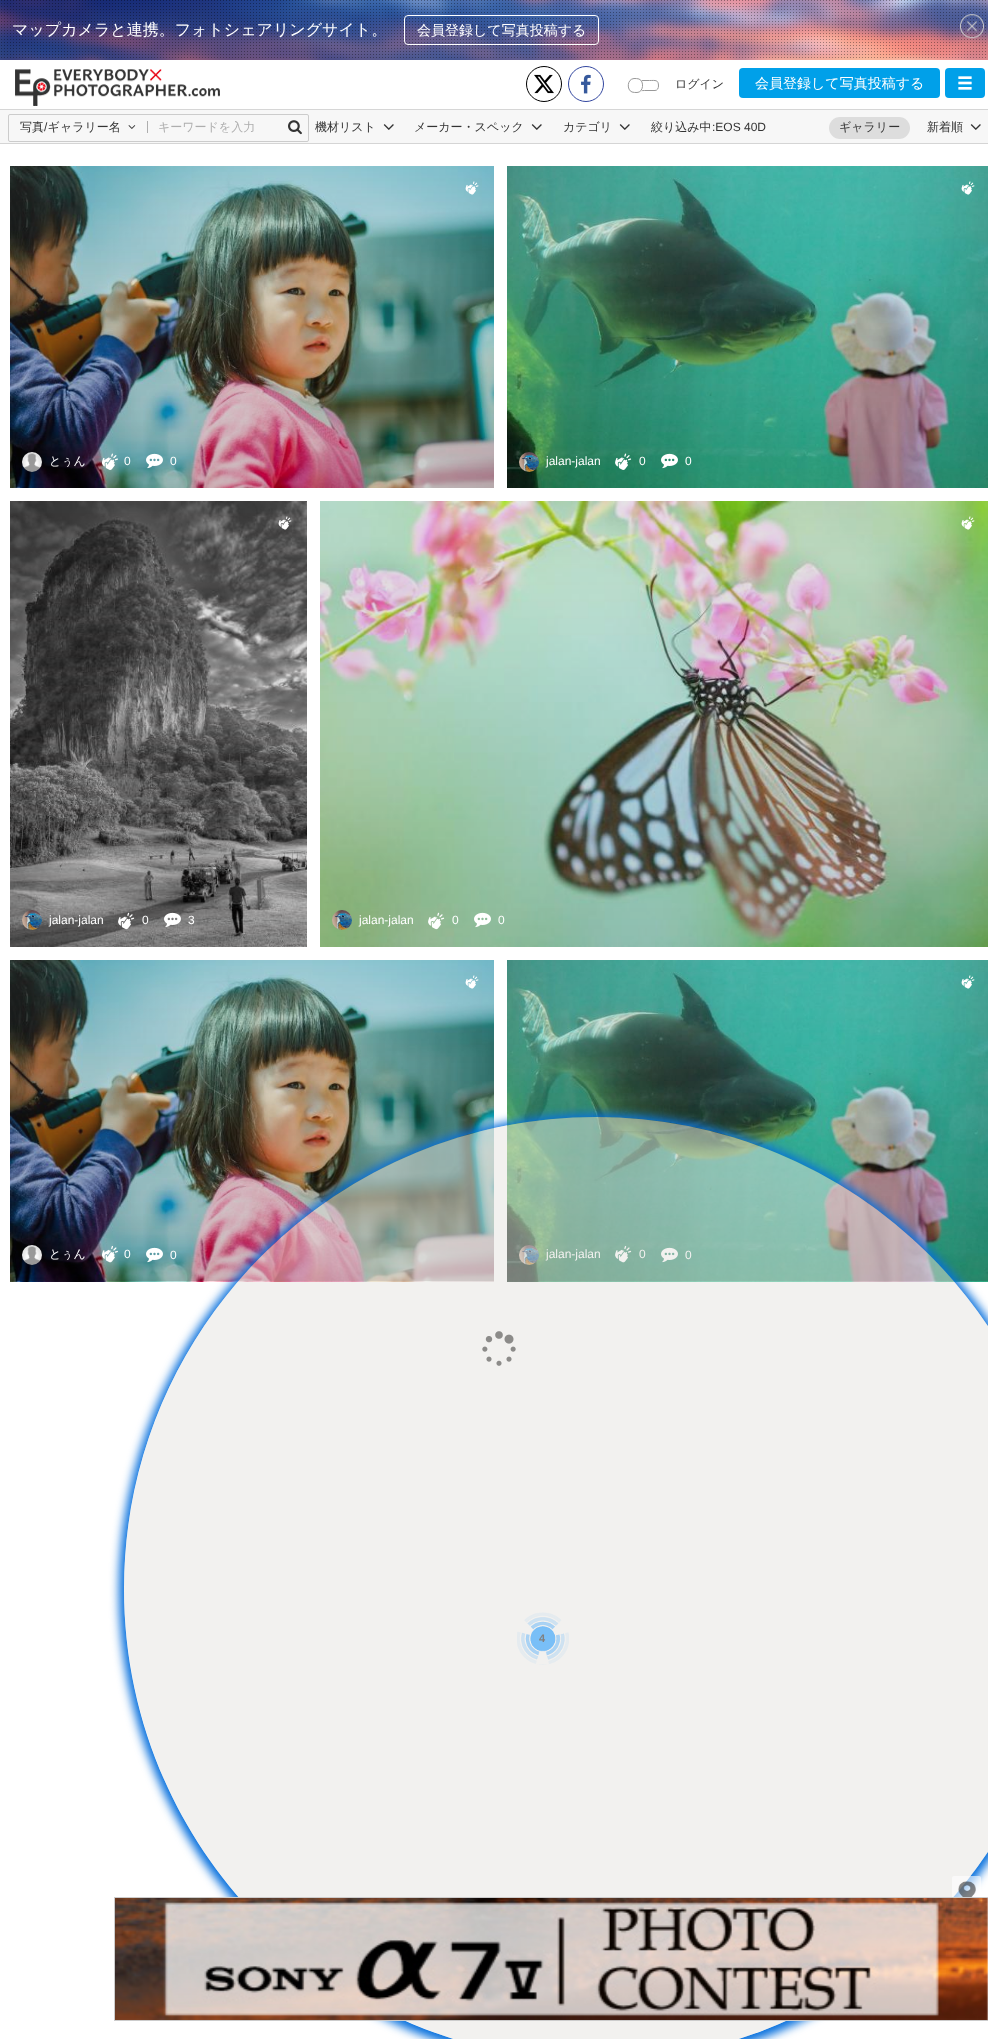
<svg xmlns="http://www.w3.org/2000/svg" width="988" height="2039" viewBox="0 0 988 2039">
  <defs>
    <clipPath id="clip1"><path d="M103 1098H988V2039H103ZM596 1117C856.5 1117 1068 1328.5 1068 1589C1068 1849.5 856.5 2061 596 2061C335.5 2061 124 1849.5 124 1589C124 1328.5 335.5 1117 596 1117Z" clip-rule="evenodd"/></clipPath>
    <clipPath id="clip2"><path d="M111 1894H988V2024H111ZM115 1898H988V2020H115Z" clip-rule="evenodd"/></clipPath>
  </defs>
  <rect width="100%" height="100%" fill="rgb(255,255,255)"/>
  <image x="0" y="0" width="988" height="60" href="pic1.png"/>
  <text x="12" y="35" font-family="WenQuanYi Zen Hei" font-size="16" font-weight="500" fill="rgb(255,255,255)">マップカメラと連携。フォトシェアリングサイト。</text>
  <rect x="404.5" y="15.5" width="194" height="29" rx="3.5" fill="none" stroke="rgb(255,255,255)"/>
  <text x="417" y="35" font-family="WenQuanYi Zen Hei" font-size="14" font-weight="500" fill="rgb(255,255,255)">会員登録して写真投稿する</text>
  <image x="960" y="14" width="24" height="25" href="pic2.png"/>
  <rect x="0" y="109" width="988" height="1" fill="rgb(214,214,214)"/>
  <image x="15" y="69" width="205" height="37" href="pic3.png"/>
  <circle cx="544" cy="84" r="17.5" fill="none" stroke="rgb(0,0,0)"/>
  <image x="534" y="74" width="20" height="20" href="pic4.png"/>
  <circle cx="586" cy="84" r="17.5" fill="none" stroke="rgb(51,71,160)"/>
  <image x="581" y="74" width="10" height="20" href="pic5.png"/>
  <path d="M655 90.5H644.5C642.5 90.5 639.5 91 637.5 90C634 89 634.5 80.5 639 80.5H649.5C655.5 80.5 658.5 79.5 658.5 86C658.5 88 657.5 90.5 655 90.5Z" fill="none" stroke="rgb(153,153,153)"/>
  <path d="M637 93C635 93 633.5 93 631.5 92.5C626 90 626.5 78.5 634 78C635.5 78 637.5 78 639.5 78.5C645.5 81 644.5 93 637 93Z" fill="rgb(255,255,255)"/>
  <path d="M637 92.5C635.5 92.5 633.5 92.5 632 92C626.5 90 627 79 634 78.5C635.5 78.5 637.5 78.5 639 79C644.5 81 643.5 92.5 637 92.5Z" fill="none" stroke="rgb(153,153,153)"/>
  <text x="675" y="88" font-family="WenQuanYi Zen Hei" font-size="12" font-weight="500" fill="rgb(51,51,51)">ログイン</text>
  <rect x="739" y="68" width="201" height="30" rx="4" fill="rgb(0,160,233)"/>
  <text x="755" y="88" font-family="WenQuanYi Zen Hei" font-size="14" font-weight="500" fill="rgb(255,255,255)">会員登録して写真投稿する</text>
  <rect x="945" y="68" width="40" height="30" rx="4" fill="rgb(0,160,233)"/>
  <image x="958" y="76" width="14" height="14" href="pic6.png"/>
  <rect x="0" y="110" width="988" height="33" fill="rgb(247,247,247)"/>
  <rect x="0" y="143" width="988" height="1" fill="rgb(213,213,213)"/>
  <rect x="8.5" y="114.5" width="300" height="27" rx="1.5" fill="none" stroke="rgb(204,204,204)"/>
  <text x="20" y="131" font-family="WenQuanYi Zen Hei" font-size="12" font-weight="500" fill="rgb(51,51,51)">写真 ギャラリー名</text>
  <text x="44" y="131" font-family="Liberation Sans" font-size="12" fill="rgb(51,51,51)">/</text>
  <image x="128" y="125" width="8" height="4" href="pic7.png"/>
  <rect x="147" y="121" width="1" height="12" fill="rgb(174,174,174)"/>
  <text x="158" y="131" font-family="WenQuanYi Zen Hei" font-size="12" font-weight="500" fill="rgb(174,174,174)">キーワードを入力</text>
  <image x="288" y="120" width="14" height="15" href="pic8.png"/>
  <text x="315" y="131" font-family="WenQuanYi Zen Hei" font-size="12" font-weight="500" fill="rgb(51,51,51)">機材リスト</text>
  <image x="383" y="124" width="11" height="6" href="pic9.png"/>
  <text x="414" y="131" font-family="WenQuanYi Zen Hei" font-size="12" font-weight="500" fill="rgb(51,51,51)">メーカー・スペック</text>
  <image x="531" y="124" width="11" height="6" href="pic9.png"/>
  <text x="563" y="131" font-family="WenQuanYi Zen Hei" font-size="12" font-weight="500" fill="rgb(51,51,51)">カテゴリ</text>
  <image x="619" y="124" width="11" height="6" href="pic9.png"/>
  <text x="651" y="131" font-family="WenQuanYi Zen Hei" font-size="12" font-weight="500" fill="rgb(51,51,51)">絞り込み中</text>
  <text x="712" y="131" font-family="Liberation Sans" font-size="12" fill="rgb(51,51,51)">:EOS 40D</text>
  <rect x="829" y="117" width="81" height="22" rx="11" fill="rgb(221,221,221)"/>
  <g font-family="WenQuanYi Zen Hei" font-size="12" font-weight="500" fill="rgb(51,51,51)">
    <text x="839" y="131">ギャラリー</text>
    <text x="927" y="131">新着順</text>
  </g>
  <image x="970" y="124" width="11" height="6" href="pic9.png"/>
  <image x="10" y="166" width="484" height="322" href="pic10.png"/>
  <image x="465" y="181" width="14" height="14" href="pic11.png"/>
  <image x="22" y="452" width="20" height="20" href="pic12.png"/>
  <text x="49" y="465" font-family="WenQuanYi Zen Hei" font-size="12" font-weight="500" fill="rgb(255,255,255)">とぅん</text>
  <image x="101" y="453" width="17" height="17" href="pic13.png"/>
  <text x="124" y="465" font-family="Liberation Sans" font-size="12" fill="rgb(255,255,255)">0</text>
  <image x="146" y="453" width="17" height="16" href="pic14.png"/>
  <text x="170" y="465" font-family="Liberation Sans" font-size="12" fill="rgb(255,255,255)">0</text>
  <image x="507" y="166" width="481" height="322" href="pic15.png"/>
  <image x="961" y="181" width="14" height="14" href="pic16.png"/>
  <image x="519" y="452" width="20" height="20" href="pic17.png"/>
  <text x="546" y="465" font-family="Liberation Sans" font-size="12" fill="rgb(255,255,255)">jalan-jalan</text>
  <image x="615" y="453" width="17" height="17" href="pic18.png"/>
  <text x="639" y="465" font-family="Liberation Sans" font-size="12" fill="rgb(255,255,255)">0</text>
  <image x="661" y="453" width="17" height="16" href="pic19.png"/>
  <text x="685" y="465" font-family="Liberation Sans" font-size="12" fill="rgb(255,255,255)">0</text>
  <image x="10" y="501" width="297" height="446" href="pic20.png"/>
  <image x="278" y="516" width="14" height="14" href="pic21.png"/>
  <image x="22" y="910" width="20" height="20" href="pic22.png"/>
  <text x="49" y="924" font-family="Liberation Sans" font-size="12" fill="rgb(255,255,255)">jalan-jalan</text>
  <image x="118" y="912" width="17" height="18" href="pic23.png"/>
  <text x="142" y="924" font-family="Liberation Sans" font-size="12" fill="rgb(255,255,255)">0</text>
  <image x="164" y="912" width="17" height="16" href="pic24.png"/>
  <text x="188" y="924" font-family="Liberation Sans" font-size="12" fill="rgb(255,255,255)">3</text>
  <image x="320" y="501" width="668" height="446" href="pic25.png"/>
  <image x="961" y="516" width="14" height="14" href="pic26.png"/>
  <image x="332" y="910" width="20" height="20" href="pic27.png"/>
  <text x="359" y="924" font-family="Liberation Sans" font-size="12" fill="rgb(255,255,255)">jalan-jalan</text>
  <image x="428" y="912" width="17" height="18" href="pic28.png"/>
  <text x="452" y="924" font-family="Liberation Sans" font-size="12" fill="rgb(255,255,255)">0</text>
  <image x="474" y="912" width="17" height="16" href="pic29.png"/>
  <text x="498" y="924" font-family="Liberation Sans" font-size="12" fill="rgb(255,255,255)">0</text>
  <image x="10" y="960" width="484" height="322" href="pic30.png"/>
  <image x="465" y="975" width="14" height="14" href="pic11.png"/>
  <image x="22" y="1245" width="20" height="20" href="pic31.png"/>
  <text x="49" y="1258" font-family="WenQuanYi Zen Hei" font-size="12" font-weight="500" fill="rgb(255,255,255)">とぅん</text>
  <image x="102" y="1245" width="16" height="18" href="pic32.png"/>
  <text x="124" y="1258" font-family="Liberation Sans" font-size="12" fill="rgb(255,255,255)">0</text>
  <image x="146" y="1247" width="17" height="16" href="pic33.png"/>
  <text x="170" y="1259" font-family="Liberation Sans" font-size="12" fill="rgb(255,255,255)">0</text>
  <image x="507" y="960" width="481" height="322" href="pic34.png"/>
  <image x="961" y="975" width="14" height="14" href="pic16.png"/>
  <image x="519" y="1245" width="20" height="20" href="pic35.png"/>
  <text x="546" y="1258" font-family="Liberation Sans" font-size="12" fill="rgb(255,255,255)">jalan-jalan</text>
  <image x="615" y="1245" width="17" height="18" href="pic36.png"/>
  <text x="639" y="1258" font-family="Liberation Sans" font-size="12" fill="rgb(255,255,255)">0</text>
  <image x="661" y="1247" width="17" height="16" href="pic37.png"/>
  <text x="685" y="1259" font-family="Liberation Sans" font-size="12" fill="rgb(255,255,255)">0</text>
  <image x="482" y="1331" width="34" height="35" href="pic38.png"/>
  <g clip-path="url(#clip1)">
    <rect x="119" y="1114" width="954" height="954" rx="477" fill="rgb(7,112,221)" filter="blur(5px)"/>
  </g>
  <circle cx="596" cy="1589" r="472" fill="rgba(229,227,223,0.5)"/>
  <image x="517" y="1612" width="52" height="53" href="pic39.png"/>
  <text x="539" y="1642" font-family="Liberation Sans" font-size="11" font-weight="bold" fill="rgb(128,128,128)">4</text>
  <rect x="952" y="1876" width="29" height="30" rx="2" fill="rgba(255,255,255,0.6)"/>
  <image x="958" y="1881" width="18" height="17" href="pic40.png"/>
  <g clip-path="url(#clip2)">
    <rect x="114" y="1897" width="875" height="124" fill="rgb(204,204,204)" filter="blur(0.5px)"/>
  </g>
  <image x="115" y="1898" width="873" height="122" href="pic41.png"/>
</svg>
